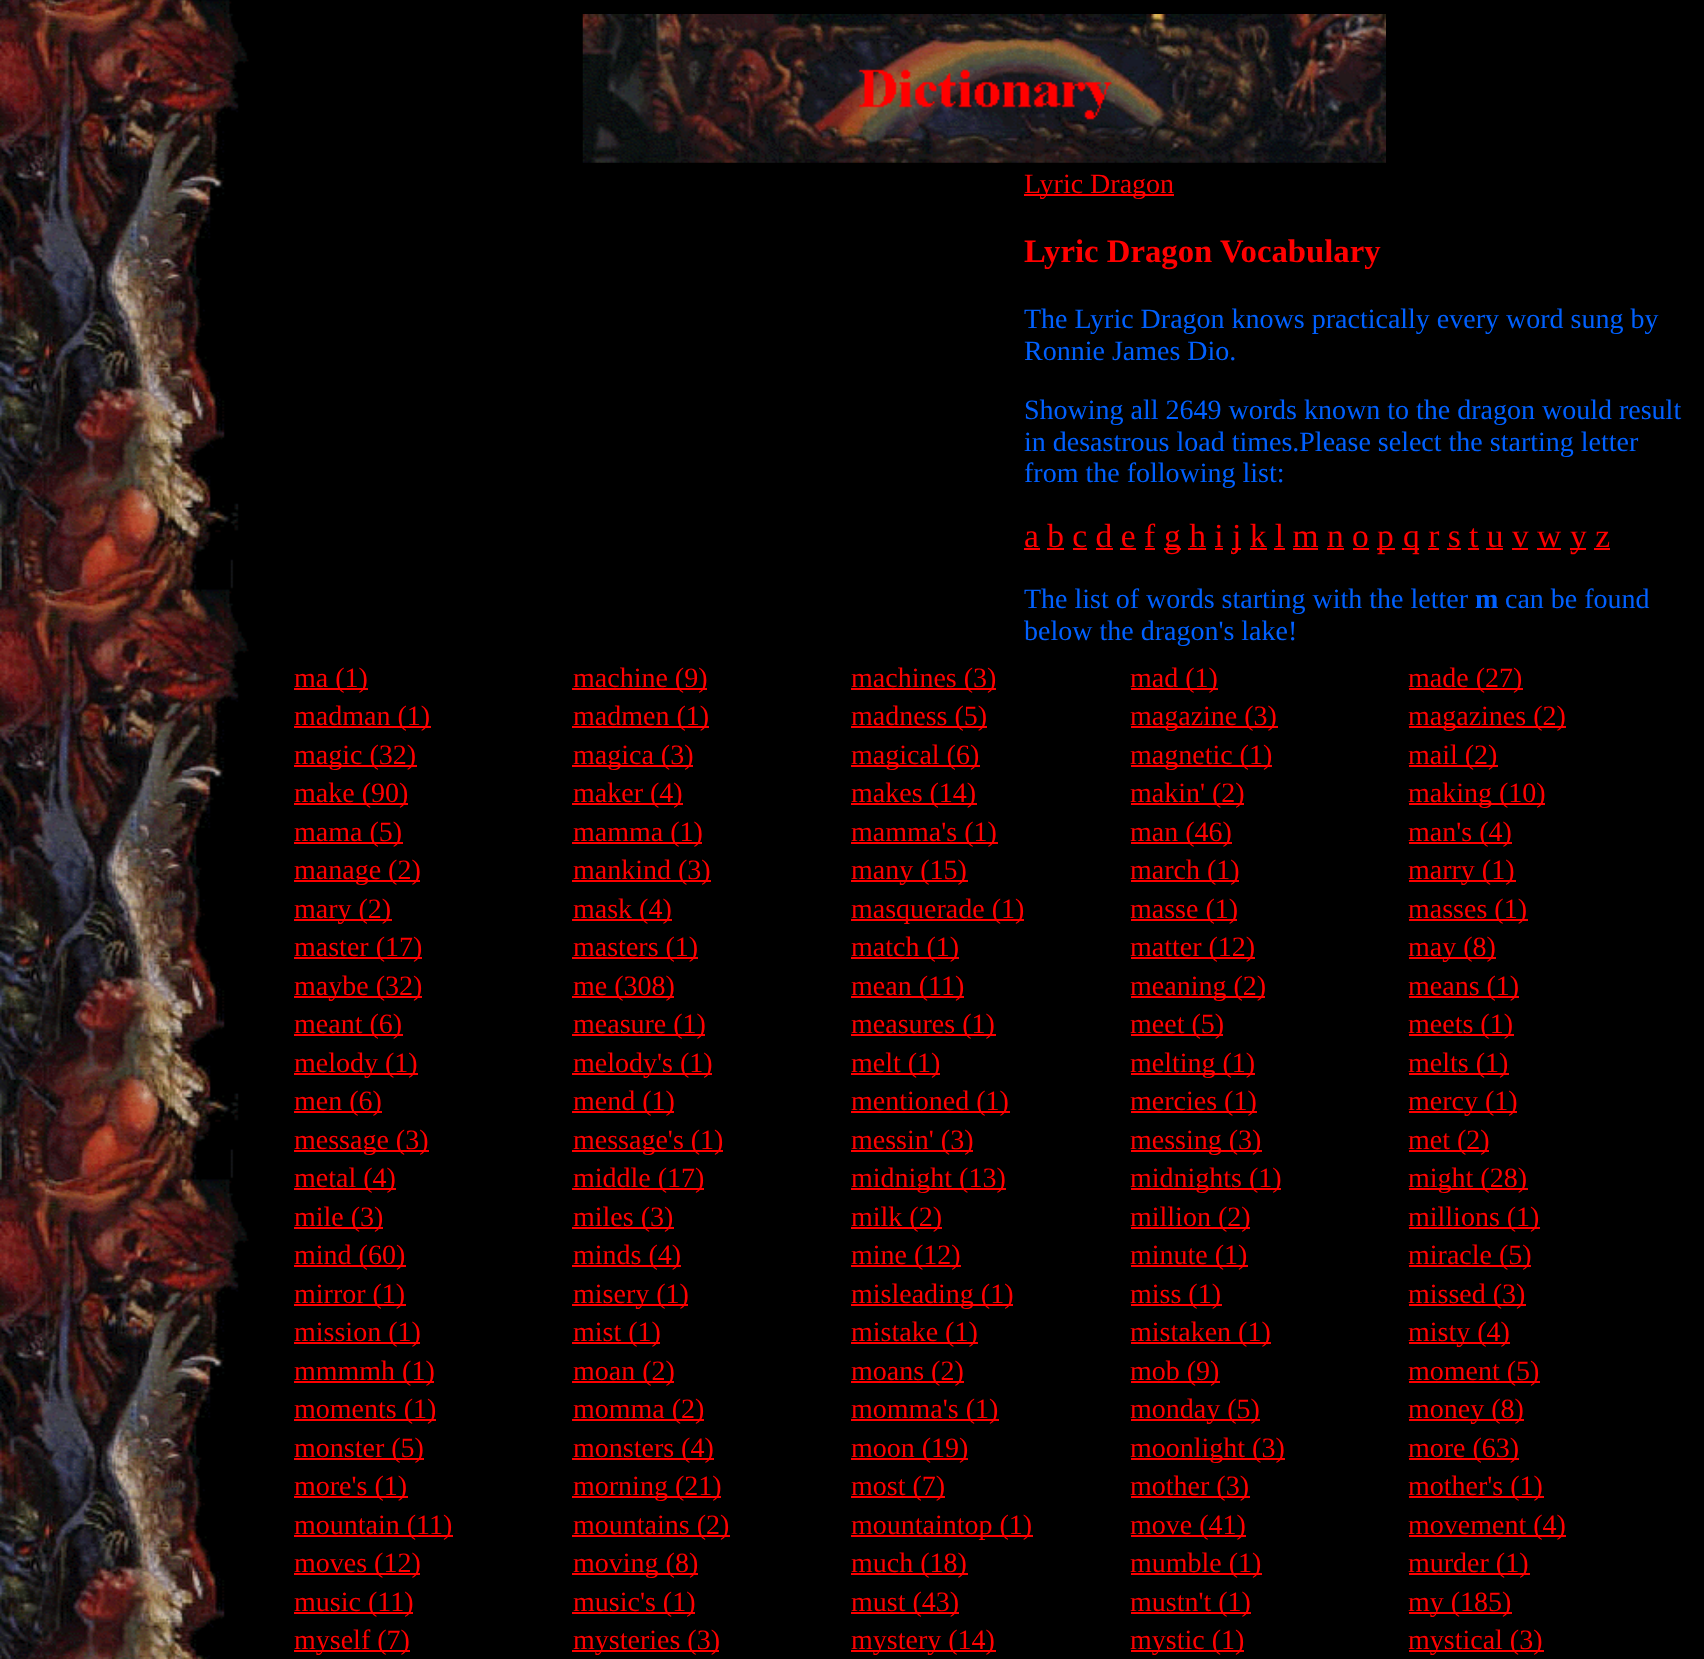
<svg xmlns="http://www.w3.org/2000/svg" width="1704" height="1659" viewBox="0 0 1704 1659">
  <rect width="100%" height="100%" fill="rgb(0,0,0)"/>
  <image x="0" y="0" width="249" height="1659" href="pic1.png"/>
  <image x="582" y="14" width="804" height="149" href="pic2.png"/>
  <rect x="1024" y="194" width="150" height="2" fill="rgb(255,0,0)"/>
  <text x="1024" y="193" font-family="Liberation Serif" font-size="28" fill="rgb(255,0,0)">Lyric Dragon</text>
  <text x="1024" y="262" font-family="Liberation Serif" font-size="32.75" font-weight="bold" fill="rgb(255,0,0)">Lyric Dragon Vocabulary</text>
  <g font-family="Liberation Serif" font-size="28" fill="rgb(0,96,255)">
    <text>
      <tspan x="1024" y="328">The Lyric Dragon knows practically every word sung by</tspan>
      <tspan x="1024" y="360">Ronnie James Dio.</tspan>
    </text>
    <text>
      <tspan x="1024" y="419">Showing all 2649 words known to the dragon would result</tspan>
      <tspan x="1024" y="451">in desastrous load times.Please select the starting letter</tspan>
      <tspan x="1024" y="482">from the following list:</tspan>
    </text>
  </g>
  <text x="1024" y="547" font-family="Liberation Serif" font-size="33.5" fill="rgb(255,0,0)">a b c d e f</text>
  <rect x="1024" y="548" width="16" height="2" fill="rgb(255,0,0)"/>
  <rect x="1047" y="548" width="17" height="2" fill="rgb(255,0,0)"/>
  <rect x="1073" y="548" width="14" height="2" fill="rgb(255,0,0)"/>
  <rect x="1096" y="548" width="17" height="2" fill="rgb(255,0,0)"/>
  <rect x="1120" y="548" width="16" height="2" fill="rgb(255,0,0)"/>
  <rect x="1145" y="548" width="10" height="2" fill="rgb(255,0,0)"/>
  <rect x="1164" y="548" width="17" height="2" fill="rgb(255,0,0)"/>
  <text x="1164" y="547" font-family="Liberation Serif" font-size="33.5" fill="rgb(255,0,0)">g h i</text>
  <rect x="1188" y="548" width="18" height="2" fill="rgb(255,0,0)"/>
  <rect x="1215" y="548" width="8" height="2" fill="rgb(255,0,0)"/>
  <rect x="1232" y="548" width="9" height="2" fill="rgb(255,0,0)"/>
  <text x="1232" y="547" font-family="Liberation Serif" font-size="33.5" fill="rgb(255,0,0)">j k l m n o</text>
  <rect x="1250" y="548" width="17" height="2" fill="rgb(255,0,0)"/>
  <rect x="1274" y="548" width="11" height="2" fill="rgb(255,0,0)"/>
  <rect x="1293" y="548" width="25" height="2" fill="rgb(255,0,0)"/>
  <rect x="1327" y="548" width="17" height="2" fill="rgb(255,0,0)"/>
  <rect x="1353" y="548" width="16" height="2" fill="rgb(255,0,0)"/>
  <rect x="1377" y="548" width="18" height="2" fill="rgb(255,0,0)"/>
  <text x="1377" y="547" font-family="Liberation Serif" font-size="33.5" fill="rgb(255,0,0)">p</text>
  <rect x="1402" y="548" width="17" height="2" fill="rgb(255,0,0)"/>
  <text x="1403" y="547" font-family="Liberation Serif" font-size="33.5" fill="rgb(255,0,0)">q r s t u v w</text>
  <rect x="1428" y="548" width="11" height="2" fill="rgb(255,0,0)"/>
  <rect x="1447" y="548" width="14" height="2" fill="rgb(255,0,0)"/>
  <rect x="1468" y="548" width="11" height="2" fill="rgb(255,0,0)"/>
  <rect x="1486" y="548" width="17" height="2" fill="rgb(255,0,0)"/>
  <rect x="1512" y="548" width="16" height="2" fill="rgb(255,0,0)"/>
  <rect x="1537" y="548" width="24" height="2" fill="rgb(255,0,0)"/>
  <rect x="1570" y="548" width="16" height="2" fill="rgb(255,0,0)"/>
  <text x="1570" y="547" font-family="Liberation Serif" font-size="33.5" fill="rgb(255,0,0)">y z</text>
  <rect x="1594" y="548" width="16" height="2" fill="rgb(255,0,0)"/>
  <text x="1024" y="608" font-family="Liberation Serif" font-size="28" fill="rgb(0,96,255)">The list of words starting with the letter</text>
  <text x="1475" y="608" font-family="Liberation Serif" font-size="28" font-weight="bold" fill="rgb(0,96,255)">m</text>
  <g font-family="Liberation Serif" font-size="28" fill="rgb(0,96,255)">
    <text x="1505" y="608">can be found</text>
    <text x="1024" y="640">below the dragon's lake!</text>
  </g>
  <rect x="294" y="688" width="74" height="2" fill="rgb(255,0,0)"/>
  <text x="294" y="687" font-family="Liberation Serif" font-size="28" fill="rgb(255,0,0)">ma (1)</text>
  <rect x="572" y="688" width="135" height="2" fill="rgb(255,0,0)"/>
  <text x="573" y="687" font-family="Liberation Serif" font-size="28" fill="rgb(255,0,0)">machine (9)</text>
  <rect x="851" y="688" width="145" height="2" fill="rgb(255,0,0)"/>
  <text x="851" y="687" font-family="Liberation Serif" font-size="28" fill="rgb(255,0,0)">machines (3)</text>
  <rect x="1131" y="688" width="87" height="2" fill="rgb(255,0,0)"/>
  <text x="1130" y="687" font-family="Liberation Serif" font-size="28" fill="rgb(255,0,0)">mad (1)</text>
  <rect x="1409" y="688" width="114" height="2" fill="rgb(255,0,0)"/>
  <text x="1408" y="687" font-family="Liberation Serif" font-size="28" fill="rgb(255,0,0)">made (27)</text>
  <rect x="294" y="726" width="137" height="2" fill="rgb(255,0,0)"/>
  <text x="294" y="725" font-family="Liberation Serif" font-size="28" fill="rgb(255,0,0)">madman (1)</text>
  <rect x="572" y="726" width="137" height="2" fill="rgb(255,0,0)"/>
  <text x="573" y="725" font-family="Liberation Serif" font-size="28" fill="rgb(255,0,0)">madmen (1)</text>
  <rect x="851" y="726" width="136" height="2" fill="rgb(255,0,0)"/>
  <text x="851" y="725" font-family="Liberation Serif" font-size="28" fill="rgb(255,0,0)">madness (5)</text>
  <rect x="1131" y="726" width="147" height="2" fill="rgb(255,0,0)"/>
  <text x="1130" y="725" font-family="Liberation Serif" font-size="28" fill="rgb(255,0,0)">magazine (3)</text>
  <rect x="1409" y="726" width="157" height="2" fill="rgb(255,0,0)"/>
  <text x="1408" y="725" font-family="Liberation Serif" font-size="28" fill="rgb(255,0,0)">magazines (2)</text>
  <rect x="294" y="765" width="123" height="2" fill="rgb(255,0,0)"/>
  <text x="294" y="764" font-family="Liberation Serif" font-size="28" fill="rgb(255,0,0)">magic (32)</text>
  <rect x="572" y="765" width="121" height="2" fill="rgb(255,0,0)"/>
  <text x="573" y="764" font-family="Liberation Serif" font-size="28" fill="rgb(255,0,0)">magica (3)</text>
  <rect x="851" y="765" width="129" height="2" fill="rgb(255,0,0)"/>
  <text x="851" y="764" font-family="Liberation Serif" font-size="28" fill="rgb(255,0,0)">magical (6)</text>
  <rect x="1131" y="765" width="141" height="2" fill="rgb(255,0,0)"/>
  <text x="1130" y="764" font-family="Liberation Serif" font-size="28" fill="rgb(255,0,0)">magnetic (1)</text>
  <rect x="1409" y="765" width="89" height="2" fill="rgb(255,0,0)"/>
  <text x="1408" y="764" font-family="Liberation Serif" font-size="28" fill="rgb(255,0,0)">mail (2)</text>
  <rect x="294" y="803" width="114" height="2" fill="rgb(255,0,0)"/>
  <text x="294" y="802" font-family="Liberation Serif" font-size="28" fill="rgb(255,0,0)">make (90)</text>
  <rect x="572" y="803" width="111" height="2" fill="rgb(255,0,0)"/>
  <text x="573" y="802" font-family="Liberation Serif" font-size="28" fill="rgb(255,0,0)">maker (4)</text>
  <rect x="851" y="803" width="126" height="2" fill="rgb(255,0,0)"/>
  <text x="851" y="802" font-family="Liberation Serif" font-size="28" fill="rgb(255,0,0)">makes (14)</text>
  <rect x="1131" y="803" width="113" height="2" fill="rgb(255,0,0)"/>
  <text x="1130" y="802" font-family="Liberation Serif" font-size="28" fill="rgb(255,0,0)">makin' (2)</text>
  <rect x="1409" y="803" width="136" height="2" fill="rgb(255,0,0)"/>
  <text x="1408" y="802" font-family="Liberation Serif" font-size="28" fill="rgb(255,0,0)">making (10)</text>
  <rect x="294" y="842" width="109" height="2" fill="rgb(255,0,0)"/>
  <text x="294" y="841" font-family="Liberation Serif" font-size="28" fill="rgb(255,0,0)">mama (5)</text>
  <rect x="572" y="842" width="130" height="2" fill="rgb(255,0,0)"/>
  <text x="573" y="841" font-family="Liberation Serif" font-size="28" fill="rgb(255,0,0)">mamma (1)</text>
  <rect x="851" y="842" width="147" height="2" fill="rgb(255,0,0)"/>
  <text x="851" y="841" font-family="Liberation Serif" font-size="28" fill="rgb(255,0,0)">mamma's (1)</text>
  <rect x="1131" y="842" width="101" height="2" fill="rgb(255,0,0)"/>
  <text x="1130" y="841" font-family="Liberation Serif" font-size="28" fill="rgb(255,0,0)">man (46)</text>
  <rect x="1409" y="842" width="103" height="2" fill="rgb(255,0,0)"/>
  <text x="1408" y="841" font-family="Liberation Serif" font-size="28" fill="rgb(255,0,0)">man's (4)</text>
  <rect x="294" y="880" width="126" height="2" fill="rgb(255,0,0)"/>
  <text x="294" y="879" font-family="Liberation Serif" font-size="28" fill="rgb(255,0,0)">manage (2)</text>
  <rect x="572" y="880" width="139" height="2" fill="rgb(255,0,0)"/>
  <text x="573" y="879" font-family="Liberation Serif" font-size="28" fill="rgb(255,0,0)">mankind (3)</text>
  <rect x="851" y="880" width="117" height="2" fill="rgb(255,0,0)"/>
  <text x="851" y="879" font-family="Liberation Serif" font-size="28" fill="rgb(255,0,0)">many (15)</text>
  <rect x="1131" y="880" width="108" height="2" fill="rgb(255,0,0)"/>
  <text x="1130" y="879" font-family="Liberation Serif" font-size="28" fill="rgb(255,0,0)">march (1)</text>
  <rect x="1409" y="880" width="107" height="2" fill="rgb(255,0,0)"/>
  <text x="1408" y="879" font-family="Liberation Serif" font-size="28" fill="rgb(255,0,0)">marry (1)</text>
  <rect x="294" y="919" width="98" height="2" fill="rgb(255,0,0)"/>
  <text x="294" y="918" font-family="Liberation Serif" font-size="28" fill="rgb(255,0,0)">mary (2)</text>
  <rect x="572" y="919" width="100" height="2" fill="rgb(255,0,0)"/>
  <text x="573" y="918" font-family="Liberation Serif" font-size="28" fill="rgb(255,0,0)">mask (4)</text>
  <rect x="851" y="919" width="173" height="2" fill="rgb(255,0,0)"/>
  <text x="851" y="918" font-family="Liberation Serif" font-size="28" fill="rgb(255,0,0)">masquerade (1)</text>
  <rect x="1131" y="919" width="106" height="2" fill="rgb(255,0,0)"/>
  <text x="1130" y="918" font-family="Liberation Serif" font-size="28" fill="rgb(255,0,0)">masse (1)</text>
  <rect x="1409" y="919" width="119" height="2" fill="rgb(255,0,0)"/>
  <text x="1408" y="918" font-family="Liberation Serif" font-size="28" fill="rgb(255,0,0)">masses (1)</text>
  <rect x="294" y="957" width="128" height="2" fill="rgb(255,0,0)"/>
  <text x="294" y="956" font-family="Liberation Serif" font-size="28" fill="rgb(255,0,0)">master (17)</text>
  <rect x="572" y="957" width="126" height="2" fill="rgb(255,0,0)"/>
  <text x="573" y="956" font-family="Liberation Serif" font-size="28" fill="rgb(255,0,0)">masters (1)</text>
  <rect x="851" y="957" width="108" height="2" fill="rgb(255,0,0)"/>
  <text x="851" y="956" font-family="Liberation Serif" font-size="28" fill="rgb(255,0,0)">match (1)</text>
  <rect x="1131" y="957" width="124" height="2" fill="rgb(255,0,0)"/>
  <text x="1130" y="956" font-family="Liberation Serif" font-size="28" fill="rgb(255,0,0)">matter (12)</text>
  <rect x="1409" y="957" width="87" height="2" fill="rgb(255,0,0)"/>
  <text x="1408" y="956" font-family="Liberation Serif" font-size="28" fill="rgb(255,0,0)">may (8)</text>
  <rect x="294" y="996" width="128" height="2" fill="rgb(255,0,0)"/>
  <text x="294" y="995" font-family="Liberation Serif" font-size="28" fill="rgb(255,0,0)">maybe (32)</text>
  <rect x="572" y="996" width="102" height="2" fill="rgb(255,0,0)"/>
  <text x="573" y="995" font-family="Liberation Serif" font-size="28" fill="rgb(255,0,0)">me (308)</text>
  <rect x="851" y="996" width="113" height="2" fill="rgb(255,0,0)"/>
  <text x="851" y="995" font-family="Liberation Serif" font-size="28" fill="rgb(255,0,0)">mean (11)</text>
  <rect x="1131" y="996" width="134" height="2" fill="rgb(255,0,0)"/>
  <text x="1130" y="995" font-family="Liberation Serif" font-size="28" fill="rgb(255,0,0)">meaning (2)</text>
  <rect x="1409" y="996" width="110" height="2" fill="rgb(255,0,0)"/>
  <text x="1408" y="995" font-family="Liberation Serif" font-size="28" fill="rgb(255,0,0)">means (1)</text>
  <rect x="294" y="1034" width="109" height="2" fill="rgb(255,0,0)"/>
  <text x="294" y="1033" font-family="Liberation Serif" font-size="28" fill="rgb(255,0,0)">meant (6)</text>
  <rect x="572" y="1034" width="133" height="2" fill="rgb(255,0,0)"/>
  <text x="573" y="1033" font-family="Liberation Serif" font-size="28" fill="rgb(255,0,0)">measure (1)</text>
  <rect x="851" y="1034" width="145" height="2" fill="rgb(255,0,0)"/>
  <text x="851" y="1033" font-family="Liberation Serif" font-size="28" fill="rgb(255,0,0)">measures (1)</text>
  <rect x="1131" y="1034" width="92" height="2" fill="rgb(255,0,0)"/>
  <text x="1130" y="1033" font-family="Liberation Serif" font-size="28" fill="rgb(255,0,0)">meet (5)</text>
  <rect x="1409" y="1034" width="105" height="2" fill="rgb(255,0,0)"/>
  <text x="1408" y="1033" font-family="Liberation Serif" font-size="28" fill="rgb(255,0,0)">meets (1)</text>
  <rect x="294" y="1073" width="124" height="2" fill="rgb(255,0,0)"/>
  <text x="294" y="1072" font-family="Liberation Serif" font-size="28" fill="rgb(255,0,0)">melody (1)</text>
  <rect x="572" y="1073" width="140" height="2" fill="rgb(255,0,0)"/>
  <text x="573" y="1072" font-family="Liberation Serif" font-size="28" fill="rgb(255,0,0)">melody's (1)</text>
  <rect x="851" y="1073" width="89" height="2" fill="rgb(255,0,0)"/>
  <text x="851" y="1072" font-family="Liberation Serif" font-size="28" fill="rgb(255,0,0)">melt (1)</text>
  <rect x="1131" y="1073" width="124" height="2" fill="rgb(255,0,0)"/>
  <text x="1130" y="1072" font-family="Liberation Serif" font-size="28" fill="rgb(255,0,0)">melting (1)</text>
  <rect x="1409" y="1073" width="100" height="2" fill="rgb(255,0,0)"/>
  <text x="1408" y="1072" font-family="Liberation Serif" font-size="28" fill="rgb(255,0,0)">melts (1)</text>
  <rect x="294" y="1111" width="88" height="2" fill="rgb(255,0,0)"/>
  <text x="294" y="1110" font-family="Liberation Serif" font-size="28" fill="rgb(255,0,0)">men (6)</text>
  <rect x="572" y="1111" width="102" height="2" fill="rgb(255,0,0)"/>
  <text x="573" y="1110" font-family="Liberation Serif" font-size="28" fill="rgb(255,0,0)">mend (1)</text>
  <rect x="851" y="1111" width="159" height="2" fill="rgb(255,0,0)"/>
  <text x="851" y="1110" font-family="Liberation Serif" font-size="28" fill="rgb(255,0,0)">mentioned (1)</text>
  <rect x="1131" y="1111" width="126" height="2" fill="rgb(255,0,0)"/>
  <text x="1130" y="1110" font-family="Liberation Serif" font-size="28" fill="rgb(255,0,0)">mercies (1)</text>
  <rect x="1409" y="1111" width="108" height="2" fill="rgb(255,0,0)"/>
  <text x="1408" y="1110" font-family="Liberation Serif" font-size="28" fill="rgb(255,0,0)">mercy (1)</text>
  <rect x="294" y="1150" width="135" height="2" fill="rgb(255,0,0)"/>
  <text x="294" y="1149" font-family="Liberation Serif" font-size="28" fill="rgb(255,0,0)">message (3)</text>
  <rect x="572" y="1150" width="151" height="2" fill="rgb(255,0,0)"/>
  <text x="573" y="1149" font-family="Liberation Serif" font-size="28" fill="rgb(255,0,0)">message's (1)</text>
  <rect x="851" y="1150" width="122" height="2" fill="rgb(255,0,0)"/>
  <text x="851" y="1149" font-family="Liberation Serif" font-size="28" fill="rgb(255,0,0)">messin' (3)</text>
  <rect x="1131" y="1150" width="131" height="2" fill="rgb(255,0,0)"/>
  <text x="1130" y="1149" font-family="Liberation Serif" font-size="28" fill="rgb(255,0,0)">messing (3)</text>
  <rect x="1409" y="1150" width="80" height="2" fill="rgb(255,0,0)"/>
  <text x="1408" y="1149" font-family="Liberation Serif" font-size="28" fill="rgb(255,0,0)">met (2)</text>
  <rect x="294" y="1188" width="102" height="2" fill="rgb(255,0,0)"/>
  <text x="294" y="1187" font-family="Liberation Serif" font-size="28" fill="rgb(255,0,0)">metal (4)</text>
  <rect x="572" y="1188" width="132" height="2" fill="rgb(255,0,0)"/>
  <text x="573" y="1187" font-family="Liberation Serif" font-size="28" fill="rgb(255,0,0)">middle (17)</text>
  <rect x="851" y="1188" width="155" height="2" fill="rgb(255,0,0)"/>
  <text x="851" y="1187" font-family="Liberation Serif" font-size="28" fill="rgb(255,0,0)">midnight (13)</text>
  <rect x="1131" y="1188" width="150" height="2" fill="rgb(255,0,0)"/>
  <text x="1130" y="1187" font-family="Liberation Serif" font-size="28" fill="rgb(255,0,0)">midnights (1)</text>
  <rect x="1409" y="1188" width="119" height="2" fill="rgb(255,0,0)"/>
  <text x="1408" y="1187" font-family="Liberation Serif" font-size="28" fill="rgb(255,0,0)">might (28)</text>
  <rect x="294" y="1227" width="89" height="2" fill="rgb(255,0,0)"/>
  <text x="294" y="1226" font-family="Liberation Serif" font-size="28" fill="rgb(255,0,0)">mile (3)</text>
  <rect x="572" y="1227" width="102" height="2" fill="rgb(255,0,0)"/>
  <text x="573" y="1226" font-family="Liberation Serif" font-size="28" fill="rgb(255,0,0)">miles (3)</text>
  <rect x="851" y="1227" width="91" height="2" fill="rgb(255,0,0)"/>
  <text x="851" y="1226" font-family="Liberation Serif" font-size="28" fill="rgb(255,0,0)">milk (2)</text>
  <rect x="1131" y="1227" width="119" height="2" fill="rgb(255,0,0)"/>
  <text x="1130" y="1226" font-family="Liberation Serif" font-size="28" fill="rgb(255,0,0)">million (2)</text>
  <rect x="1409" y="1227" width="131" height="2" fill="rgb(255,0,0)"/>
  <text x="1408" y="1226" font-family="Liberation Serif" font-size="28" fill="rgb(255,0,0)">millions (1)</text>
  <rect x="294" y="1265" width="112" height="2" fill="rgb(255,0,0)"/>
  <text x="294" y="1264" font-family="Liberation Serif" font-size="28" fill="rgb(255,0,0)">mind (60)</text>
  <rect x="572" y="1265" width="109" height="2" fill="rgb(255,0,0)"/>
  <text x="573" y="1264" font-family="Liberation Serif" font-size="28" fill="rgb(255,0,0)">minds (4)</text>
  <rect x="851" y="1265" width="110" height="2" fill="rgb(255,0,0)"/>
  <text x="851" y="1264" font-family="Liberation Serif" font-size="28" fill="rgb(255,0,0)">mine (12)</text>
  <rect x="1131" y="1265" width="117" height="2" fill="rgb(255,0,0)"/>
  <text x="1130" y="1264" font-family="Liberation Serif" font-size="28" fill="rgb(255,0,0)">minute (1)</text>
  <rect x="1409" y="1265" width="122" height="2" fill="rgb(255,0,0)"/>
  <text x="1408" y="1264" font-family="Liberation Serif" font-size="28" fill="rgb(255,0,0)">miracle (5)</text>
  <rect x="294" y="1304" width="112" height="2" fill="rgb(255,0,0)"/>
  <text x="294" y="1303" font-family="Liberation Serif" font-size="28" fill="rgb(255,0,0)">mirror (1)</text>
  <rect x="572" y="1304" width="116" height="2" fill="rgb(255,0,0)"/>
  <text x="573" y="1303" font-family="Liberation Serif" font-size="28" fill="rgb(255,0,0)">misery (1)</text>
  <rect x="851" y="1304" width="162" height="2" fill="rgb(255,0,0)"/>
  <text x="851" y="1303" font-family="Liberation Serif" font-size="28" fill="rgb(255,0,0)">misleading (1)</text>
  <rect x="1131" y="1304" width="91" height="2" fill="rgb(255,0,0)"/>
  <text x="1130" y="1303" font-family="Liberation Serif" font-size="28" fill="rgb(255,0,0)">miss (1)</text>
  <rect x="1409" y="1304" width="117" height="2" fill="rgb(255,0,0)"/>
  <text x="1408" y="1303" font-family="Liberation Serif" font-size="28" fill="rgb(255,0,0)">missed (3)</text>
  <rect x="294" y="1342" width="126" height="2" fill="rgb(255,0,0)"/>
  <text x="294" y="1341" font-family="Liberation Serif" font-size="28" fill="rgb(255,0,0)">mission (1)</text>
  <rect x="572" y="1342" width="88" height="2" fill="rgb(255,0,0)"/>
  <text x="573" y="1341" font-family="Liberation Serif" font-size="28" fill="rgb(255,0,0)">mist (1)</text>
  <rect x="851" y="1342" width="127" height="2" fill="rgb(255,0,0)"/>
  <text x="851" y="1341" font-family="Liberation Serif" font-size="28" fill="rgb(255,0,0)">mistake (1)</text>
  <rect x="1131" y="1342" width="140" height="2" fill="rgb(255,0,0)"/>
  <text x="1130" y="1341" font-family="Liberation Serif" font-size="28" fill="rgb(255,0,0)">mistaken (1)</text>
  <rect x="1409" y="1342" width="101" height="2" fill="rgb(255,0,0)"/>
  <text x="1408" y="1341" font-family="Liberation Serif" font-size="28" fill="rgb(255,0,0)">misty (4)</text>
  <rect x="294" y="1381" width="140" height="2" fill="rgb(255,0,0)"/>
  <text x="294" y="1380" font-family="Liberation Serif" font-size="28" fill="rgb(255,0,0)">mmmmh (1)</text>
  <rect x="572" y="1381" width="102" height="2" fill="rgb(255,0,0)"/>
  <text x="573" y="1380" font-family="Liberation Serif" font-size="28" fill="rgb(255,0,0)">moan (2)</text>
  <rect x="851" y="1381" width="113" height="2" fill="rgb(255,0,0)"/>
  <text x="851" y="1380" font-family="Liberation Serif" font-size="28" fill="rgb(255,0,0)">moans (2)</text>
  <rect x="1131" y="1381" width="89" height="2" fill="rgb(255,0,0)"/>
  <text x="1130" y="1380" font-family="Liberation Serif" font-size="28" fill="rgb(255,0,0)">mob (9)</text>
  <rect x="1409" y="1381" width="131" height="2" fill="rgb(255,0,0)"/>
  <text x="1408" y="1380" font-family="Liberation Serif" font-size="28" fill="rgb(255,0,0)">moment (5)</text>
  <rect x="294" y="1419" width="142" height="2" fill="rgb(255,0,0)"/>
  <text x="294" y="1418" font-family="Liberation Serif" font-size="28" fill="rgb(255,0,0)">moments (1)</text>
  <rect x="572" y="1419" width="132" height="2" fill="rgb(255,0,0)"/>
  <text x="573" y="1418" font-family="Liberation Serif" font-size="28" fill="rgb(255,0,0)">momma (2)</text>
  <rect x="851" y="1419" width="148" height="2" fill="rgb(255,0,0)"/>
  <text x="851" y="1418" font-family="Liberation Serif" font-size="28" fill="rgb(255,0,0)">momma's (1)</text>
  <rect x="1131" y="1419" width="129" height="2" fill="rgb(255,0,0)"/>
  <text x="1130" y="1418" font-family="Liberation Serif" font-size="28" fill="rgb(255,0,0)">monday (5)</text>
  <rect x="1409" y="1419" width="115" height="2" fill="rgb(255,0,0)"/>
  <text x="1408" y="1418" font-family="Liberation Serif" font-size="28" fill="rgb(255,0,0)">money (8)</text>
  <rect x="294" y="1458" width="130" height="2" fill="rgb(255,0,0)"/>
  <text x="294" y="1457" font-family="Liberation Serif" font-size="28" fill="rgb(255,0,0)">monster (5)</text>
  <rect x="572" y="1458" width="142" height="2" fill="rgb(255,0,0)"/>
  <text x="573" y="1457" font-family="Liberation Serif" font-size="28" fill="rgb(255,0,0)">monsters (4)</text>
  <rect x="851" y="1458" width="117" height="2" fill="rgb(255,0,0)"/>
  <text x="851" y="1457" font-family="Liberation Serif" font-size="28" fill="rgb(255,0,0)">moon (19)</text>
  <rect x="1131" y="1458" width="154" height="2" fill="rgb(255,0,0)"/>
  <text x="1130" y="1457" font-family="Liberation Serif" font-size="28" fill="rgb(255,0,0)">moonlight (3)</text>
  <rect x="1409" y="1458" width="110" height="2" fill="rgb(255,0,0)"/>
  <text x="1408" y="1457" font-family="Liberation Serif" font-size="28" fill="rgb(255,0,0)">more (63)</text>
  <rect x="294" y="1496" width="114" height="2" fill="rgb(255,0,0)"/>
  <text x="294" y="1495" font-family="Liberation Serif" font-size="28" fill="rgb(255,0,0)">more's (1)</text>
  <rect x="572" y="1496" width="149" height="2" fill="rgb(255,0,0)"/>
  <text x="573" y="1495" font-family="Liberation Serif" font-size="28" fill="rgb(255,0,0)">morning (21)</text>
  <rect x="851" y="1496" width="94" height="2" fill="rgb(255,0,0)"/>
  <text x="851" y="1495" font-family="Liberation Serif" font-size="28" fill="rgb(255,0,0)">most (7)</text>
  <rect x="1131" y="1496" width="119" height="2" fill="rgb(255,0,0)"/>
  <text x="1130" y="1495" font-family="Liberation Serif" font-size="28" fill="rgb(255,0,0)">mother (3)</text>
  <rect x="1409" y="1496" width="135" height="2" fill="rgb(255,0,0)"/>
  <text x="1408" y="1495" font-family="Liberation Serif" font-size="28" fill="rgb(255,0,0)">mother's (1)</text>
  <rect x="294" y="1535" width="159" height="2" fill="rgb(255,0,0)"/>
  <text x="294" y="1534" font-family="Liberation Serif" font-size="28" fill="rgb(255,0,0)">mountain (11)</text>
  <rect x="572" y="1535" width="158" height="2" fill="rgb(255,0,0)"/>
  <text x="573" y="1534" font-family="Liberation Serif" font-size="28" fill="rgb(255,0,0)">mountains (2)</text>
  <rect x="851" y="1535" width="182" height="2" fill="rgb(255,0,0)"/>
  <text x="851" y="1534" font-family="Liberation Serif" font-size="28" fill="rgb(255,0,0)">mountaintop (1)</text>
  <rect x="1131" y="1535" width="115" height="2" fill="rgb(255,0,0)"/>
  <text x="1130" y="1534" font-family="Liberation Serif" font-size="28" fill="rgb(255,0,0)">move (41)</text>
  <rect x="1409" y="1535" width="157" height="2" fill="rgb(255,0,0)"/>
  <text x="1408" y="1534" font-family="Liberation Serif" font-size="28" fill="rgb(255,0,0)">movement (4)</text>
  <rect x="294" y="1573" width="126" height="2" fill="rgb(255,0,0)"/>
  <text x="294" y="1572" font-family="Liberation Serif" font-size="28" fill="rgb(255,0,0)">moves (12)</text>
  <rect x="572" y="1573" width="126" height="2" fill="rgb(255,0,0)"/>
  <text x="573" y="1572" font-family="Liberation Serif" font-size="28" fill="rgb(255,0,0)">moving (8)</text>
  <rect x="851" y="1573" width="117" height="2" fill="rgb(255,0,0)"/>
  <text x="851" y="1572" font-family="Liberation Serif" font-size="28" fill="rgb(255,0,0)">much (18)</text>
  <rect x="1131" y="1573" width="131" height="2" fill="rgb(255,0,0)"/>
  <text x="1130" y="1572" font-family="Liberation Serif" font-size="28" fill="rgb(255,0,0)">mumble (1)</text>
  <rect x="1409" y="1573" width="121" height="2" fill="rgb(255,0,0)"/>
  <text x="1408" y="1572" font-family="Liberation Serif" font-size="28" fill="rgb(255,0,0)">murder (1)</text>
  <rect x="294" y="1612" width="119" height="2" fill="rgb(255,0,0)"/>
  <text x="294" y="1611" font-family="Liberation Serif" font-size="28" fill="rgb(255,0,0)">music (11)</text>
  <rect x="572" y="1612" width="123" height="2" fill="rgb(255,0,0)"/>
  <text x="573" y="1611" font-family="Liberation Serif" font-size="28" fill="rgb(255,0,0)">music's (1)</text>
  <rect x="851" y="1612" width="108" height="2" fill="rgb(255,0,0)"/>
  <text x="851" y="1611" font-family="Liberation Serif" font-size="28" fill="rgb(255,0,0)">must (43)</text>
  <rect x="1131" y="1612" width="120" height="2" fill="rgb(255,0,0)"/>
  <text x="1130" y="1611" font-family="Liberation Serif" font-size="28" fill="rgb(255,0,0)">mustn't (1)</text>
  <rect x="1409" y="1612" width="103" height="2" fill="rgb(255,0,0)"/>
  <text x="1408" y="1611" font-family="Liberation Serif" font-size="28" fill="rgb(255,0,0)">my (185)</text>
  <rect x="294" y="1650" width="116" height="2" fill="rgb(255,0,0)"/>
  <text x="294" y="1649" font-family="Liberation Serif" font-size="28" fill="rgb(255,0,0)">myself (7)</text>
  <rect x="572" y="1650" width="147" height="2" fill="rgb(255,0,0)"/>
  <text x="573" y="1649" font-family="Liberation Serif" font-size="28" fill="rgb(255,0,0)">mysteries (3)</text>
  <rect x="851" y="1650" width="145" height="2" fill="rgb(255,0,0)"/>
  <text x="851" y="1649" font-family="Liberation Serif" font-size="28" fill="rgb(255,0,0)">mystery (14)</text>
  <rect x="1131" y="1650" width="113" height="2" fill="rgb(255,0,0)"/>
  <text x="1130" y="1649" font-family="Liberation Serif" font-size="28" fill="rgb(255,0,0)">mystic (1)</text>
  <rect x="1409" y="1650" width="135" height="2" fill="rgb(255,0,0)"/>
  <text x="1408" y="1649" font-family="Liberation Serif" font-size="28" fill="rgb(255,0,0)">mystical (3)</text>
</svg>
